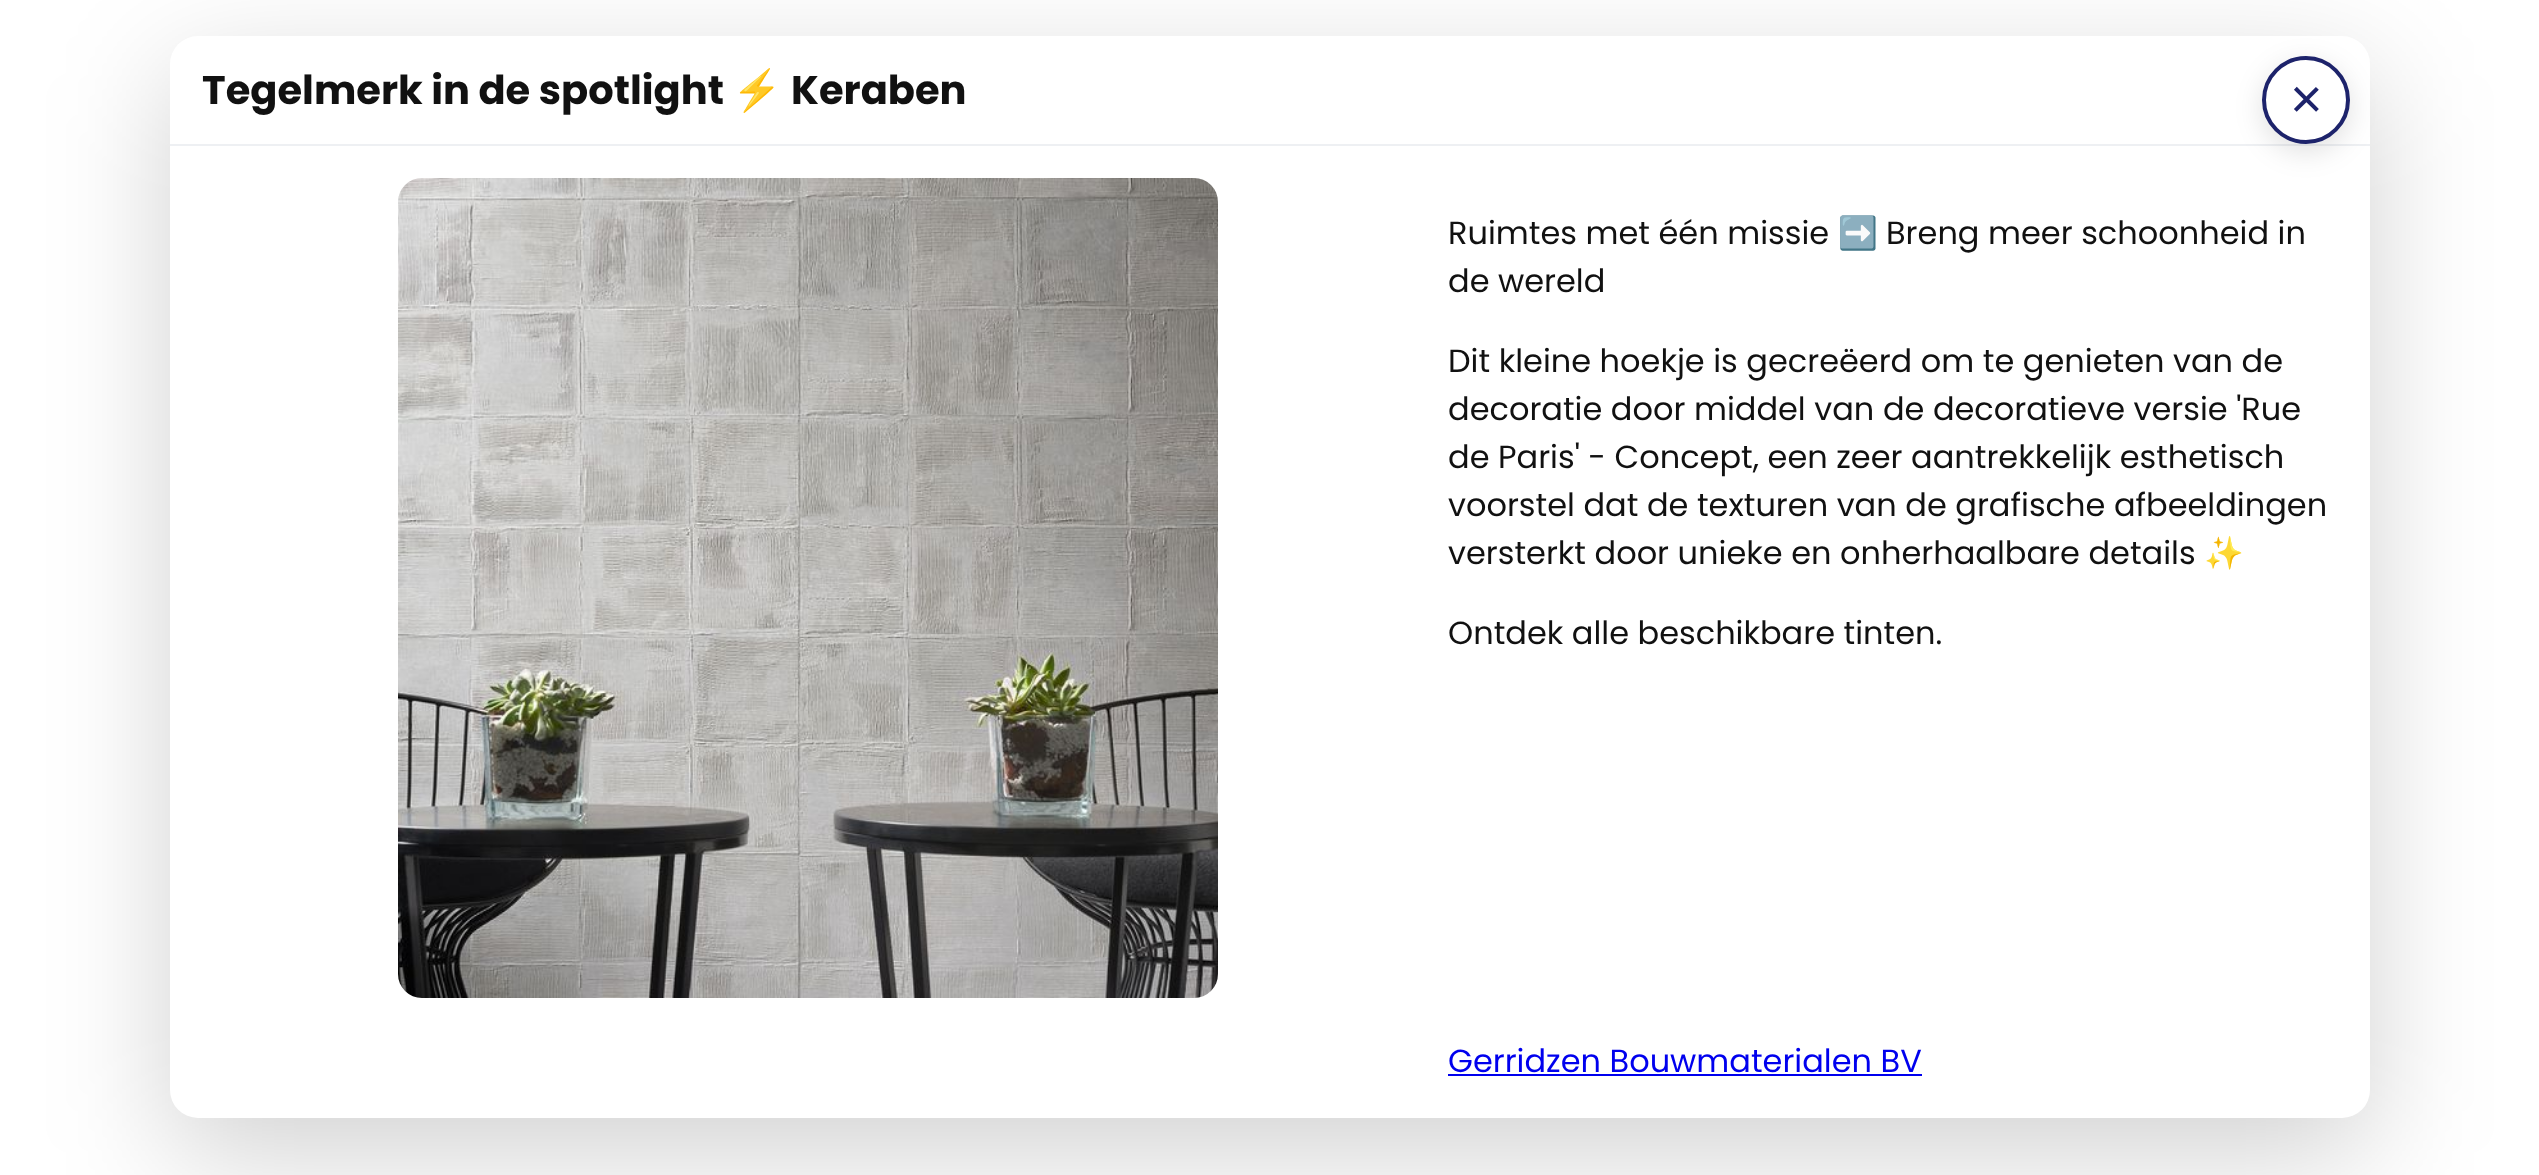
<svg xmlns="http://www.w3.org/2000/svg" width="2539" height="1175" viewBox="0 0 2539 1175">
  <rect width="100%" height="100%" fill="rgb(255,255,255)"/>
  <rect x="170" y="72" width="2200" height="1082" rx="28" fill="rgba(0,0,0,0.18)" filter="blur(60px)"/>
  <rect x="170" y="36" width="2200" height="1082" rx="28" fill="rgb(255,255,255)"/>
  <rect x="170" y="144" width="2200" height="2" fill="rgb(238,240,243)"/>
  <text x="202" y="104" font-family="Poppins" font-size="40" font-weight="bold" fill="rgb(17,17,17)">Tegelmerk in de spotlight</text>
  <text x="732" y="104" font-family="Noto Color Emoji" font-size="40" font-weight="bold" fill="rgb(17,17,17)">⚡</text>
  <text x="791" y="104" font-family="Poppins" font-size="40" font-weight="bold" fill="rgb(17,17,17)">Keraben</text>
  <rect x="2262" y="64" width="88" height="88" rx="44" fill="rgba(0,0,0,0.12)" filter="blur(14px)"/>
  <circle cx="2306" cy="100" r="42" fill="rgb(255,255,255)" stroke="rgb(29,35,107)" stroke-width="4"/>
  <text x="2290" y="118" font-family="Liberation Sans" font-size="56" fill="rgb(29,35,107)">×</text>
  <image x="398" y="178" width="820" height="820" href="pic1.png"/>
  <text x="1448" y="244" font-family="Poppins" font-size="32" fill="rgb(17,17,17)">Ruimtes met één missie</text>
  <text x="1838" y="244" font-family="Noto Color Emoji" font-size="32" fill="rgb(17,17,17)">➡️</text>
  <g font-family="Poppins" font-size="32" fill="rgb(17,17,17)">
    <text x="1886" y="244">Breng meer schoonheid in</text>
    <text x="1448" y="292">de wereld</text>
    <text>
      <tspan x="1448" y="372">Dit kleine hoekje is gecreëerd om te genieten van de</tspan>
      <tspan x="1448" y="420">decoratie door middel van de decoratieve versie 'Rue</tspan>
      <tspan x="1448" y="468">de Paris' - Concept, een zeer aantrekkelijk esthetisch</tspan>
      <tspan x="1448" y="516">voorstel dat de texturen van de grafische afbeeldingen</tspan>
      <tspan x="1448" y="564">versterkt door unieke en onherhaalbare details</tspan>
    </text>
  </g>
  <text x="2204" y="564" font-family="Noto Color Emoji" font-size="32" fill="rgb(17,17,17)">✨</text>
  <text x="1448" y="644" font-family="Poppins" font-size="32" fill="rgb(17,17,17)">Ontdek alle beschikbare tinten.</text>
  <text x="1448" y="1072" font-family="Poppins" font-size="32" fill="rgb(0,0,238)">Gerridzen Bouwmaterialen BV</text>
  <rect x="1448" y="1074" width="474" height="2" fill="rgb(0,0,238)"/>
</svg>
